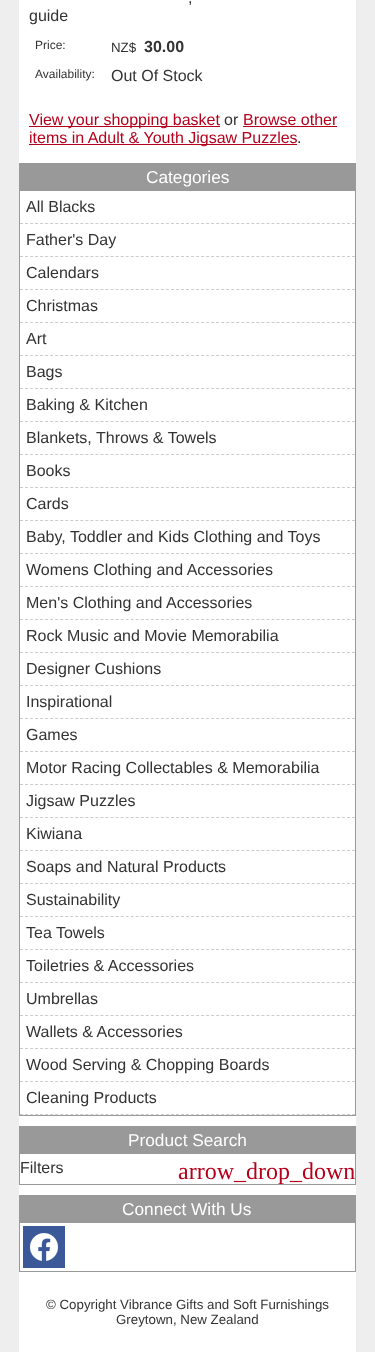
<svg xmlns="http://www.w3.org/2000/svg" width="375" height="1352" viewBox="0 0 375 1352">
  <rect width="100%" height="100%" fill="rgb(238,238,238)"/>
  <rect x="19" y="0" width="337" height="1352" fill="rgb(255,255,255)"/>
  <g font-family="Liberation Sans" font-size="16" fill="rgb(51,51,51)">
    <text x="188" y="3">,</text>
    <text x="29" y="21">guide</text>
  </g>
  <text x="35" y="49" font-family="Liberation Sans" font-size="12" fill="rgb(51,51,51)">Price:</text>
  <text x="111" y="52" font-family="Liberation Sans" font-size="13.3" fill="rgb(51,51,51)">NZ$</text>
  <text x="144" y="52" font-family="Liberation Sans" font-size="16" font-weight="bold" fill="rgb(51,51,51)">30.00</text>
  <text x="35" y="78" font-family="Liberation Sans" font-size="12" fill="rgb(51,51,51)">Availability:</text>
  <text x="111" y="81" font-family="Liberation Sans" font-size="16" fill="rgb(51,51,51)">Out Of Stock</text>
  <rect x="29" y="126" width="191" height="1" fill="rgb(181,1,28)"/>
  <text x="29" y="125" font-family="Liberation Sans" font-size="16" fill="rgb(181,1,28)">View your shopping basket</text>
  <text x="224" y="125" font-family="Liberation Sans" font-size="16" fill="rgb(51,51,51)">or</text>
  <text x="243" y="125" font-family="Liberation Sans" font-size="16" fill="rgb(181,1,28)">Browse other</text>
  <rect x="243" y="126" width="94" height="1" fill="rgb(181,1,28)"/>
  <rect x="29" y="144" width="268" height="1" fill="rgb(181,1,28)"/>
  <text x="29" y="143" font-family="Liberation Sans" font-size="16" fill="rgb(181,1,28)">items in Adult &amp; Youth Jigsaw Puzzles</text>
  <text x="297" y="143" font-family="Liberation Sans" font-size="16" fill="rgb(51,51,51)">.</text>
  <rect x="19.5" y="163.5" width="336" height="952" fill="none" stroke="rgb(153,153,153)"/>
  <rect x="20" y="164" width="335" height="27" fill="rgb(153,153,153)"/>
  <text x="146" y="183" font-family="Liberation Sans" font-size="17.25" fill="rgb(255,255,255)">Categories</text>
  <path d="M20 223.5H355" fill="none" stroke="rgb(204,204,204)" stroke-dasharray="3 2.03"/>
  <text x="26" y="212" font-family="Liberation Sans" font-size="16" fill="rgb(51,51,51)">All Blacks</text>
  <path d="M20 256.5H355" fill="none" stroke="rgb(204,204,204)" stroke-dasharray="3 2.03"/>
  <text x="26" y="245" font-family="Liberation Sans" font-size="16" fill="rgb(51,51,51)">Father's Day</text>
  <path d="M20 289.5H355" fill="none" stroke="rgb(204,204,204)" stroke-dasharray="3 2.03"/>
  <text x="26" y="278" font-family="Liberation Sans" font-size="16" fill="rgb(51,51,51)">Calendars</text>
  <path d="M20 322.5H355" fill="none" stroke="rgb(204,204,204)" stroke-dasharray="3 2.03"/>
  <text x="26" y="311" font-family="Liberation Sans" font-size="16" fill="rgb(51,51,51)">Christmas</text>
  <path d="M20 355.5H355" fill="none" stroke="rgb(204,204,204)" stroke-dasharray="3 2.03"/>
  <text x="26" y="344" font-family="Liberation Sans" font-size="16" fill="rgb(51,51,51)">Art</text>
  <path d="M20 388.5H355" fill="none" stroke="rgb(204,204,204)" stroke-dasharray="3 2.03"/>
  <text x="26" y="377" font-family="Liberation Sans" font-size="16" fill="rgb(51,51,51)">Bags</text>
  <path d="M20 421.5H355" fill="none" stroke="rgb(204,204,204)" stroke-dasharray="3 2.03"/>
  <text x="26" y="410" font-family="Liberation Sans" font-size="16" fill="rgb(51,51,51)">Baking &amp; Kitchen</text>
  <path d="M20 454.5H355" fill="none" stroke="rgb(204,204,204)" stroke-dasharray="3 2.03"/>
  <text x="26" y="443" font-family="Liberation Sans" font-size="16" fill="rgb(51,51,51)">Blankets, Throws &amp; Towels</text>
  <path d="M20 487.5H355" fill="none" stroke="rgb(204,204,204)" stroke-dasharray="3 2.03"/>
  <text x="26" y="476" font-family="Liberation Sans" font-size="16" fill="rgb(51,51,51)">Books</text>
  <path d="M20 520.5H355" fill="none" stroke="rgb(204,204,204)" stroke-dasharray="3 2.03"/>
  <text x="26" y="509" font-family="Liberation Sans" font-size="16" fill="rgb(51,51,51)">Cards</text>
  <path d="M20 553.5H355" fill="none" stroke="rgb(204,204,204)" stroke-dasharray="3 2.03"/>
  <text x="26" y="542" font-family="Liberation Sans" font-size="16" fill="rgb(51,51,51)">Baby, Toddler and Kids Clothing and Toys</text>
  <path d="M20 586.5H355" fill="none" stroke="rgb(204,204,204)" stroke-dasharray="3 2.03"/>
  <text x="26" y="575" font-family="Liberation Sans" font-size="16" fill="rgb(51,51,51)">Womens Clothing and Accessories</text>
  <path d="M20 619.5H355" fill="none" stroke="rgb(204,204,204)" stroke-dasharray="3 2.03"/>
  <text x="26" y="608" font-family="Liberation Sans" font-size="16" fill="rgb(51,51,51)">Men's Clothing and Accessories</text>
  <path d="M20 652.5H355" fill="none" stroke="rgb(204,204,204)" stroke-dasharray="3 2.03"/>
  <text x="26" y="641" font-family="Liberation Sans" font-size="16" fill="rgb(51,51,51)">Rock Music and Movie Memorabilia</text>
  <path d="M20 685.5H355" fill="none" stroke="rgb(204,204,204)" stroke-dasharray="3 2.03"/>
  <text x="26" y="674" font-family="Liberation Sans" font-size="16" fill="rgb(51,51,51)">Designer Cushions</text>
  <path d="M20 718.5H355" fill="none" stroke="rgb(204,204,204)" stroke-dasharray="3 2.03"/>
  <text x="26" y="707" font-family="Liberation Sans" font-size="16" fill="rgb(51,51,51)">Inspirational</text>
  <path d="M20 751.5H355" fill="none" stroke="rgb(204,204,204)" stroke-dasharray="3 2.03"/>
  <text x="26" y="740" font-family="Liberation Sans" font-size="16" fill="rgb(51,51,51)">Games</text>
  <path d="M20 784.5H355" fill="none" stroke="rgb(204,204,204)" stroke-dasharray="3 2.03"/>
  <text x="26" y="773" font-family="Liberation Sans" font-size="16" fill="rgb(51,51,51)">Motor Racing Collectables &amp; Memorabilia</text>
  <path d="M20 817.5H355" fill="none" stroke="rgb(204,204,204)" stroke-dasharray="3 2.03"/>
  <text x="26" y="806" font-family="Liberation Sans" font-size="16" fill="rgb(51,51,51)">Jigsaw Puzzles</text>
  <path d="M20 850.5H355" fill="none" stroke="rgb(204,204,204)" stroke-dasharray="3 2.03"/>
  <text x="26" y="839" font-family="Liberation Sans" font-size="16" fill="rgb(51,51,51)">Kiwiana</text>
  <path d="M20 883.5H355" fill="none" stroke="rgb(204,204,204)" stroke-dasharray="3 2.03"/>
  <text x="26" y="872" font-family="Liberation Sans" font-size="16" fill="rgb(51,51,51)">Soaps and Natural Products</text>
  <path d="M20 916.5H355" fill="none" stroke="rgb(204,204,204)" stroke-dasharray="3 2.03"/>
  <text x="26" y="905" font-family="Liberation Sans" font-size="16" fill="rgb(51,51,51)">Sustainability</text>
  <path d="M20 949.5H355" fill="none" stroke="rgb(204,204,204)" stroke-dasharray="3 2.03"/>
  <text x="26" y="938" font-family="Liberation Sans" font-size="16" fill="rgb(51,51,51)">Tea Towels</text>
  <path d="M20 982.5H355" fill="none" stroke="rgb(204,204,204)" stroke-dasharray="3 2.03"/>
  <text x="26" y="971" font-family="Liberation Sans" font-size="16" fill="rgb(51,51,51)">Toiletries &amp; Accessories</text>
  <path d="M20 1015.5H355" fill="none" stroke="rgb(204,204,204)" stroke-dasharray="3 2.03"/>
  <text x="26" y="1004" font-family="Liberation Sans" font-size="16" fill="rgb(51,51,51)">Umbrellas</text>
  <path d="M20 1048.5H355" fill="none" stroke="rgb(204,204,204)" stroke-dasharray="3 2.03"/>
  <text x="26" y="1037" font-family="Liberation Sans" font-size="16" fill="rgb(51,51,51)">Wallets &amp; Accessories</text>
  <path d="M20 1081.5H355" fill="none" stroke="rgb(204,204,204)" stroke-dasharray="3 2.03"/>
  <text x="26" y="1070" font-family="Liberation Sans" font-size="16" fill="rgb(51,51,51)">Wood Serving &amp; Chopping Boards</text>
  <path d="M20 1114.5H355" fill="none" stroke="rgb(204,204,204)" stroke-dasharray="3 2.03"/>
  <text x="26" y="1103" font-family="Liberation Sans" font-size="16" fill="rgb(51,51,51)">Cleaning Products</text>
  <rect x="19.5" y="1126.5" width="336" height="58" fill="none" stroke="rgb(153,153,153)"/>
  <rect x="20" y="1127" width="335" height="27" fill="rgb(153,153,153)"/>
  <text x="128" y="1146" font-family="Liberation Sans" font-size="17.25" fill="rgb(255,255,255)">Product Search</text>
  <text x="20" y="1173" font-family="Liberation Sans" font-size="16" fill="rgb(51,51,51)">Filters</text>
  <text x="178" y="1179" font-family="Liberation Serif" font-size="24" fill="rgb(181,1,28)">arrow_drop_down</text>
  <rect x="19.5" y="1195.5" width="336" height="76" fill="none" stroke="rgb(153,153,153)"/>
  <rect x="20" y="1196" width="335" height="27" fill="rgb(153,153,153)"/>
  <text x="122" y="1215" font-family="Liberation Sans" font-size="17.25" fill="rgb(255,255,255)">Connect With Us</text>
  <rect x="23" y="1226" width="42" height="42" fill="rgb(59,89,152)"/>
  <image x="30" y="1233" width="28" height="28" href="pic1.png"/>
  <g font-family="Liberation Sans" font-size="13.3" fill="rgb(51,51,51)">
    <text x="46" y="1309">© Copyright Vibrance Gifts and Soft Furnishings</text>
    <text x="116" y="1324">Greytown, New Zealand</text>
  </g>
</svg>
